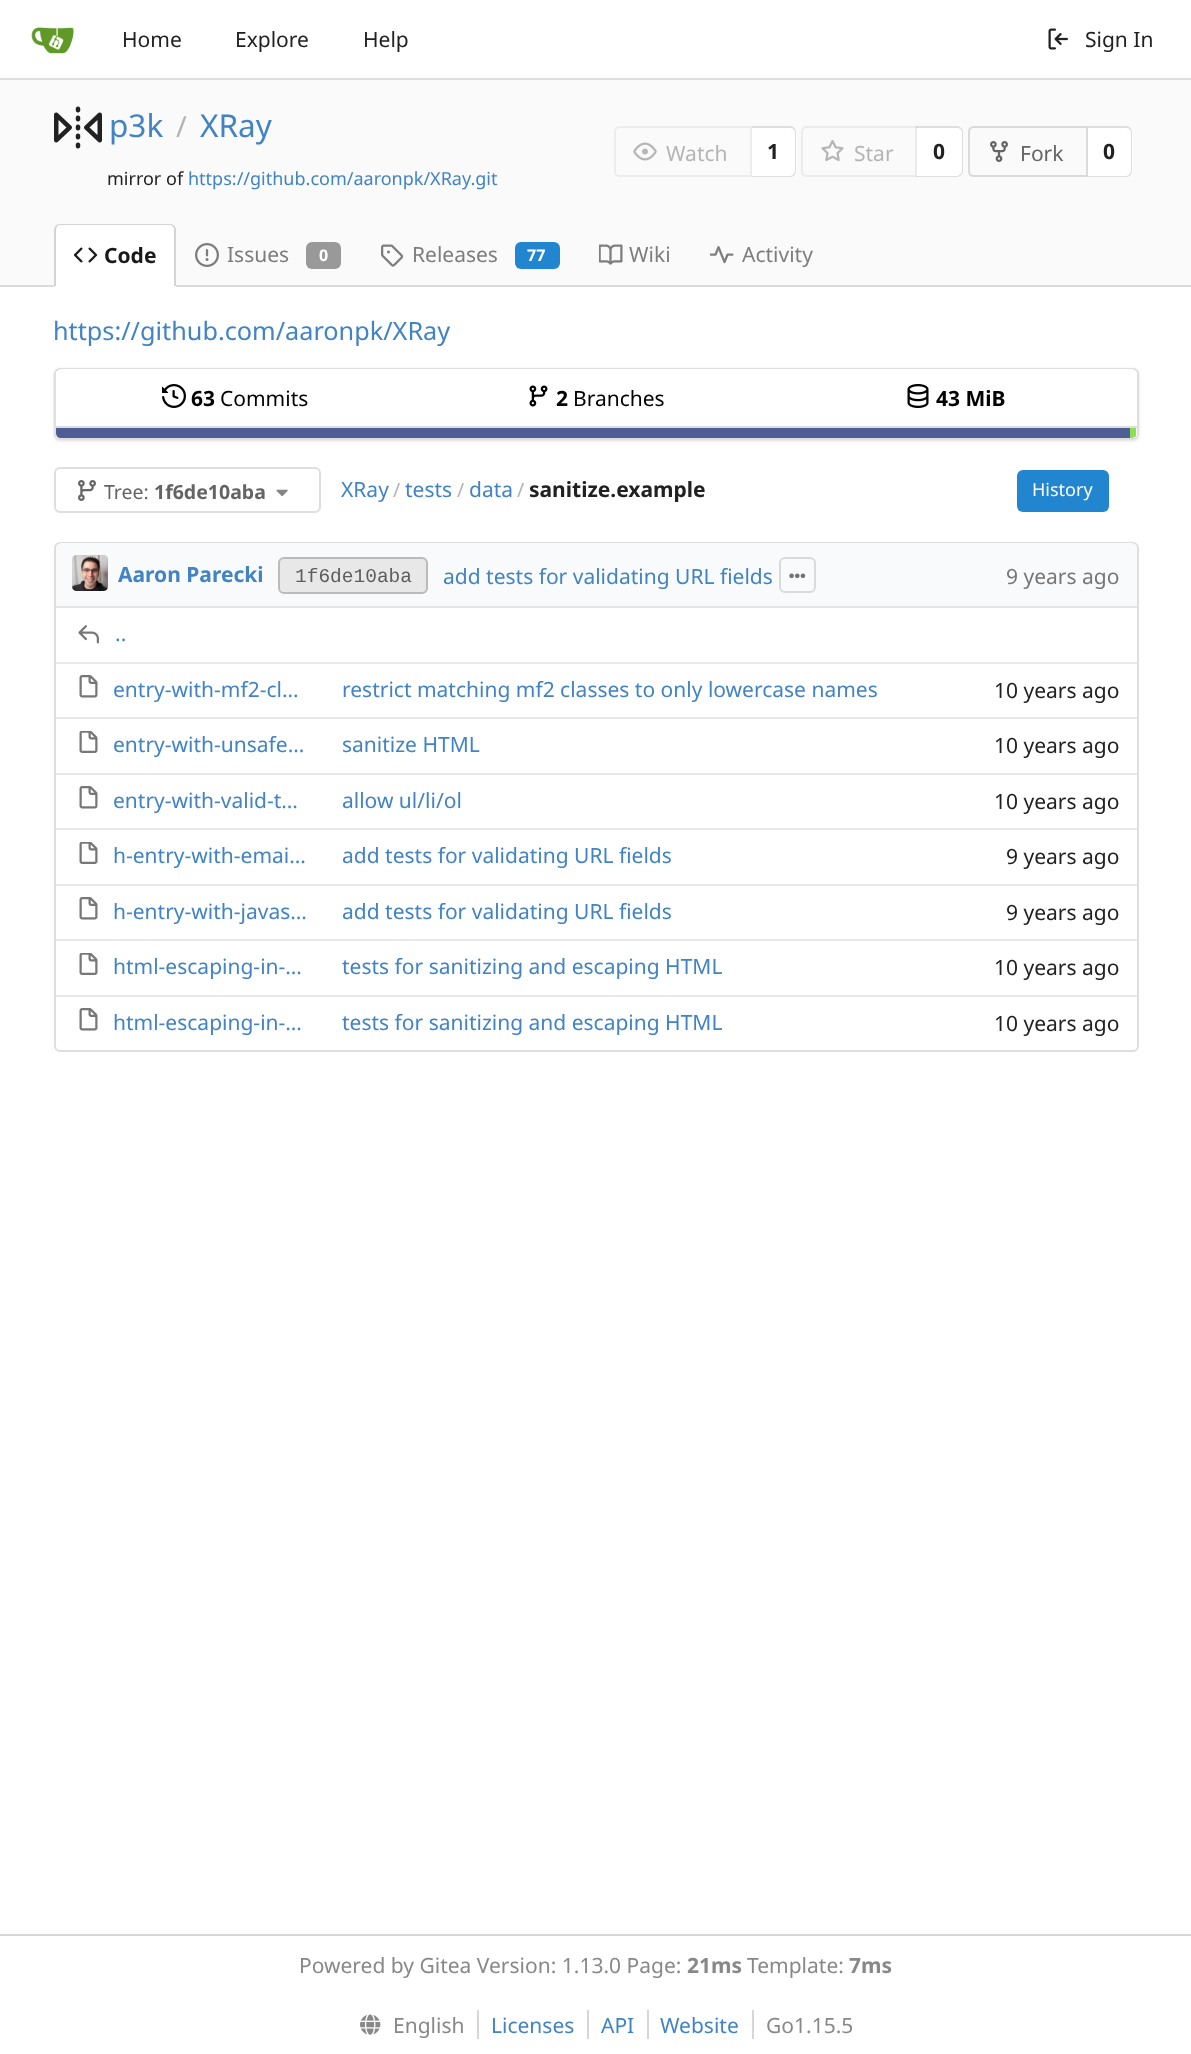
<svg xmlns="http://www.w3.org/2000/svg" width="1191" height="2054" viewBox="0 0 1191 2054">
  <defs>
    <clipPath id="clip1"><path d="M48 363H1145V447H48ZM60 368H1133C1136.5 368 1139 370.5 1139 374V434C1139 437.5 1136.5 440 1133 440H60C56.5 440 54 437.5 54 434V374C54 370.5 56.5 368 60 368Z" clip-rule="evenodd"/></clipPath>
    <clipPath id="clip2"><rect x="56" y="369" width="1081" height="69" rx="5"/></clipPath>
  </defs>
  <rect width="100%" height="100%" fill="rgb(255,255,255)"/>
  <rect x="0" y="78" width="1191" height="2" fill="rgb(221,221,221)"/>
  <image x="31" y="27" width="43" height="27" href="pic1.png"/>
  <g font-family="Noto Sans" font-size="21" fill="rgb(33,33,33)">
    <text x="122" y="47">Home</text>
    <text x="235" y="47">Explore</text>
    <text x="363" y="47">Help</text>
  </g>
  <image x="1048" y="28" width="20" height="22" href="pic2.png"/>
  <text x="1085" y="47" font-family="Noto Sans" font-size="21" fill="rgb(33,33,33)">Sign In</text>
  <rect x="0" y="80" width="1191" height="205" fill="rgb(250,250,250)"/>
  <image x="54" y="106" width="48" height="43" href="pic3.png"/>
  <text x="109" y="137" font-family="Noto Sans" font-size="31.5" fill="rgb(65,131,196)">p3k</text>
  <text x="176" y="137" font-family="Noto Sans" font-size="29" fill="rgb(180,180,180)">/</text>
  <text x="200" y="137" font-family="Noto Sans" font-size="31.5" fill="rgb(65,131,196)">XRay</text>
  <text x="107" y="185" font-family="Noto Sans" font-size="18" fill="rgb(33,33,33)">mirror of</text>
  <text x="188" y="185" font-family="Noto Sans" font-size="18" fill="rgb(65,131,196)">https://github.com/aaronpk/XRay.git</text>
  <path d="M620 127H751V176H620C617 176 615 174 615 171V132C615 129 617 127 620 127Z" fill="none" stroke="rgb(235,236,236)" stroke-width="2"/>
  <image x="633" y="142" width="24" height="19" href="pic4.png"/>
  <text x="666" y="161" font-family="Noto Sans" font-size="21" fill="rgb(180,180,180)">Watch</text>
  <path d="M752 126H791C794.5 126 797 128.5 797 132V171C797 174.5 794.5 177 791 177H752Z" fill="rgb(255,255,255)"/>
  <path d="M752 126H790C794 126 796 129 796 132V171C796 174 794 177 790 177H752ZM752 128H790C793 128 795 130 795 132V171C795 173 793 176 790 176H752Z" fill="rgb(222,222,222)" fill-rule="evenodd"/>
  <text x="767" y="159" font-family="Noto Sans" font-size="21" font-weight="bold" fill="rgb(33,33,33)">1</text>
  <path d="M917 126H957C960.5 126 963 128.5 963 132V171C963 174.5 960.5 177 957 177H917Z" fill="rgb(255,255,255)"/>
  <path d="M916 126H957C960 126 963 129 963 132V171C963 174 960 177 957 177H916ZM916 128H957C959 128 962 130 962 132V171C962 173 959 176 957 176H916Z" fill="rgba(34,36,38,0.15)" fill-rule="evenodd"/>
  <path d="M807 127H916V176H807C804 176 802 174 802 171V132C802 129 804 127 807 127Z" fill="none" stroke="rgba(34,36,38,0.07)" stroke-width="2"/>
  <image x="821" y="140" width="23" height="21" href="pic5.png"/>
  <text x="854" y="161" font-family="Noto Sans" font-size="21" fill="rgb(180,180,180)">Star</text>
  <text x="933" y="159" font-family="Noto Sans" font-size="21" font-weight="bold" fill="rgb(33,33,33)">0</text>
  <path d="M974 127H1087V176H974C971 176 969 174 969 171V132C969 129 971 127 974 127Z" fill="none" stroke="rgb(218,218,218)" stroke-width="2"/>
  <image x="990" y="141" width="18" height="21" href="pic6.png"/>
  <text x="1020" y="161" font-family="Noto Sans" font-size="21" fill="rgb(100,100,100)">Fork</text>
  <path d="M1088 126H1127C1130.5 126 1133 128.5 1133 132V171C1133 174.5 1130.5 177 1127 177H1088Z" fill="rgb(255,255,255)"/>
  <path d="M1088 126H1126C1130 126 1132 129 1132 132V171C1132 174 1130 177 1126 177H1088ZM1088 128H1126C1129 128 1131 130 1131 132V171C1131 173 1129 176 1126 176H1088Z" fill="rgb(222,222,222)" fill-rule="evenodd"/>
  <text x="1103" y="159" font-family="Noto Sans" font-size="21" font-weight="bold" fill="rgb(33,33,33)">0</text>
  <rect x="0" y="285" width="1191" height="2" fill="rgb(218,218,218)"/>
  <path d="M60 224H170C173.5 224 176 226.5 176 230V287H54V230C54 226.5 56.5 224 60 224Z" fill="rgb(255,255,255)"/>
  <path d="M60 224H170C173 224 176 226 176 230V286H54V230C54 226 57 224 60 224ZM60 225H170C172 225 174 227 174 230V286H56V230C56 227 58 225 60 225Z" fill="rgb(212,212,213)" fill-rule="evenodd"/>
  <image x="74" y="247" width="24" height="16" href="pic7.png"/>
  <text x="104" y="263" font-family="Noto Sans" font-size="21" font-weight="bold" fill="rgb(26,26,26)">Code</text>
  <image x="195" y="243" width="24" height="24" href="pic8.png"/>
  <text x="227" y="262" font-family="Noto Sans" font-size="21" fill="rgb(125,125,125)">Issues</text>
  <rect x="306" y="242" width="35" height="27" rx="6" fill="rgb(153,153,153)"/>
  <text x="319" y="261" font-family="Noto Sans" font-size="16" font-weight="bold" fill="rgb(255,255,255)">0</text>
  <image x="381" y="244" width="23" height="23" href="pic9.png"/>
  <text x="412" y="262" font-family="Noto Sans" font-size="21" fill="rgb(125,125,125)">Releases</text>
  <rect x="515" y="242" width="45" height="27" rx="6" fill="rgb(33,133,208)"/>
  <text x="527" y="261" font-family="Noto Sans" font-size="16" font-weight="bold" fill="rgb(255,255,255)">77</text>
  <image x="599" y="244" width="24" height="21" href="pic10.png"/>
  <text x="629" y="262" font-family="Noto Sans" font-size="21" fill="rgb(125,125,125)">Wiki</text>
  <image x="710" y="246" width="24" height="18" href="pic11.png"/>
  <text x="742" y="262" font-family="Noto Sans" font-size="21" fill="rgb(125,125,125)">Activity</text>
  <text x="53" y="340" font-family="Noto Sans" font-size="25.25" fill="rgb(65,131,196)">https://github.com/aaronpk/XRay</text>
  <g clip-path="url(#clip1)">
    <rect x="54" y="369" width="1085" height="72" rx="6" fill="rgba(34,36,38,0.15)" filter="blur(1.5px)"/>
  </g>
  <rect x="55" y="369" width="1083" height="70" rx="5" fill="none" stroke="rgba(34,36,38,0.15)" stroke-width="2"/>
  <g clip-path="url(#clip2)">
    <path d="M62 369H1131C1134.5 369 1137 371.5 1137 375V426H56V375C56 371.5 58.5 369 62 369Z" fill="rgb(255,255,255)"/>
  </g>
  <image x="162" y="384" width="24" height="24" href="pic12.png"/>
  <text x="191" y="406" font-family="Noto Sans" font-size="21" font-weight="bold" fill="rgb(0,0,0)">63</text>
  <text x="220" y="406" font-family="Noto Sans" font-size="21" fill="rgb(0,0,0)">Commits</text>
  <image x="529" y="385" width="19" height="22" href="pic13.png"/>
  <text x="556" y="406" font-family="Noto Sans" font-size="21" font-weight="bold" fill="rgb(0,0,0)">2</text>
  <text x="573" y="406" font-family="Noto Sans" font-size="21" fill="rgb(0,0,0)">Branches</text>
  <image x="907" y="384" width="22" height="24" href="pic14.png"/>
  <text x="936" y="406" font-family="Noto Sans" font-size="21" font-weight="bold" fill="rgb(0,0,0)">43 MiB</text>
  <g clip-path="url(#clip2)">
    <path d="M56 426H1137V437C1137 440.5 1134.5 443 1131 443H62C58.5 443 56 440.5 56 437Z" fill="rgb(255,255,255)"/>
  </g>
  <rect x="56" y="426" width="1081" height="2" fill="rgb(222,222,222)"/>
  <path d="M56 428H1130V438H61C58 438 56 436 56 433Z" fill="rgb(79,93,149)"/>
  <g clip-path="url(#clip2)">
    <rect x="1130" y="428" width="6" height="10" fill="rgb(137,224,81)"/>
  </g>
  <rect x="55" y="468" width="265" height="44" rx="5" fill="none" stroke="rgb(222,222,222)" stroke-width="2"/>
  <image x="78" y="480" width="18" height="21" href="pic15.png"/>
  <text x="104" y="499" font-family="Noto Sans" font-size="19.5" fill="rgb(100,100,100)">Tree:</text>
  <text x="154" y="499" font-family="Noto Sans" font-size="19.5" font-weight="bold" fill="rgb(100,100,100)">1f6de10aba</text>
  <image x="276" y="489" width="12" height="8" href="pic16.png"/>
  <text x="341" y="497" font-family="Noto Sans" font-size="21" fill="rgb(65,131,196)">XRay</text>
  <text x="393" y="497" font-family="Noto Sans" font-size="19.5" fill="rgb(180,180,180)">/</text>
  <text x="405" y="497" font-family="Noto Sans" font-size="21" fill="rgb(65,131,196)">tests</text>
  <text x="457" y="497" font-family="Noto Sans" font-size="19.5" fill="rgb(180,180,180)">/</text>
  <text x="469" y="497" font-family="Noto Sans" font-size="21" fill="rgb(65,131,196)">data</text>
  <text x="517" y="497" font-family="Noto Sans" font-size="19.5" fill="rgb(180,180,180)">/</text>
  <text x="529" y="497" font-family="Noto Sans" font-size="21" font-weight="bold" fill="rgb(33,33,33)">sanitize.example</text>
  <rect x="1017" y="470" width="92" height="42" rx="6" fill="rgb(33,133,208)"/>
  <text x="1032" y="496" font-family="Noto Sans" font-size="18" fill="rgb(255,255,255)">History</text>
  <rect x="55" y="543" width="1083" height="508" rx="5" fill="none" stroke="rgb(222,222,222)" stroke-width="2"/>
  <path d="M62 543H933V608H56V549C56 545.5 58.5 543 62 543Z" fill="rgb(249,250,251)"/>
  <rect x="56" y="606" width="877" height="2" fill="rgb(227,229,230)"/>
  <image x="72" y="555" width="36" height="36" href="pic17.png"/>
  <text x="118" y="582" font-family="Noto Sans" font-size="21" font-weight="bold" fill="rgb(65,131,196)">Aaron Parecki</text>
  <rect x="279" y="558" width="148" height="35" rx="5" fill="rgb(232,232,232)" stroke="rgb(187,187,187)" stroke-width="2"/>
  <text x="295" y="582" font-family="Liberation Mono" font-size="19.5" fill="rgb(93,93,93)">1f6de10aba</text>
  <text x="443" y="584" font-family="Noto Sans" font-size="21" fill="rgb(65,131,196)">add tests for validating URL fields</text>
  <rect x="780" y="558" width="35" height="34" rx="5" fill="none" stroke="rgb(217,218,219)" stroke-width="2"/>
  <image x="789" y="573" width="17" height="6" href="pic18.png"/>
  <path d="M933 543H1131C1134.5 543 1137 545.5 1137 549V608H933Z" fill="rgb(249,250,251)"/>
  <rect x="933" y="606" width="204" height="2" fill="rgb(227,229,230)"/>
  <text x="1006" y="584" font-family="Noto Sans" font-size="21" fill="rgb(118,118,118)">9 years ago</text>
  <image x="78" y="625" width="21" height="19" href="pic19.png"/>
  <text x="115" y="641" font-family="Noto Sans" font-size="21" fill="rgb(65,131,196)">..</text>
  <rect x="56" y="662" width="1081" height="2" fill="rgb(233,233,233)"/>
  <image x="79" y="675" width="19" height="23" href="pic20.png"/>
  <g font-family="Noto Sans" font-size="21" fill="rgb(65,131,196)">
    <text x="113" y="697">entry-with-mf2-cl…</text>
    <text x="342" y="697">restrict matching mf2 classes to only lowercase names</text>
  </g>
  <text x="994" y="698" font-family="Noto Sans" font-size="21" fill="rgb(33,33,33)">10 years ago</text>
  <rect x="56" y="717" width="1081" height="2" fill="rgb(233,233,233)"/>
  <image x="79" y="731" width="19" height="22" href="pic21.png"/>
  <g font-family="Noto Sans" font-size="21" fill="rgb(65,131,196)">
    <text x="113" y="752">entry-with-unsafe…</text>
    <text x="342" y="752">sanitize HTML</text>
  </g>
  <text x="994" y="753" font-family="Noto Sans" font-size="21" fill="rgb(33,33,33)">10 years ago</text>
  <rect x="56" y="773" width="1081" height="2" fill="rgb(233,233,233)"/>
  <image x="79" y="786" width="19" height="23" href="pic20.png"/>
  <g font-family="Noto Sans" font-size="21" fill="rgb(65,131,196)">
    <text x="113" y="808">entry-with-valid-t…</text>
    <text x="342" y="808">allow ul/li/ol</text>
  </g>
  <text x="994" y="809" font-family="Noto Sans" font-size="21" fill="rgb(33,33,33)">10 years ago</text>
  <rect x="56" y="828" width="1081" height="2" fill="rgb(233,233,233)"/>
  <image x="79" y="842" width="19" height="22" href="pic21.png"/>
  <g font-family="Noto Sans" font-size="21" fill="rgb(65,131,196)">
    <text x="113" y="863">h-entry-with-emai…</text>
    <text x="342" y="863">add tests for validating URL fields</text>
  </g>
  <text x="1006" y="864" font-family="Noto Sans" font-size="21" fill="rgb(33,33,33)">9 years ago</text>
  <rect x="56" y="884" width="1081" height="2" fill="rgb(233,233,233)"/>
  <image x="79" y="897" width="19" height="23" href="pic20.png"/>
  <g font-family="Noto Sans" font-size="21" fill="rgb(65,131,196)">
    <text x="113" y="919">h-entry-with-javas…</text>
    <text x="342" y="919">add tests for validating URL fields</text>
  </g>
  <text x="1006" y="920" font-family="Noto Sans" font-size="21" fill="rgb(33,33,33)">9 years ago</text>
  <rect x="56" y="939" width="1081" height="2" fill="rgb(233,233,233)"/>
  <image x="79" y="953" width="19" height="22" href="pic21.png"/>
  <g font-family="Noto Sans" font-size="21" fill="rgb(65,131,196)">
    <text x="113" y="974">html-escaping-in-…</text>
    <text x="342" y="974">tests for sanitizing and escaping HTML</text>
  </g>
  <text x="994" y="975" font-family="Noto Sans" font-size="21" fill="rgb(33,33,33)">10 years ago</text>
  <rect x="56" y="995" width="1081" height="2" fill="rgb(233,233,233)"/>
  <image x="79" y="1008" width="19" height="23" href="pic20.png"/>
  <g font-family="Noto Sans" font-size="21" fill="rgb(65,131,196)">
    <text x="113" y="1030">html-escaping-in-…</text>
    <text x="342" y="1030">tests for sanitizing and escaping HTML</text>
  </g>
  <text x="994" y="1031" font-family="Noto Sans" font-size="21" fill="rgb(33,33,33)">10 years ago</text>
  <rect x="0" y="1934" width="1191" height="2" fill="rgb(214,214,214)"/>
  <text x="299" y="1973" font-family="Noto Sans" font-size="21" fill="rgb(136,136,136)">Powered by Gitea Version: 1.13.0 Page:</text>
  <text x="687" y="1973" font-family="Noto Sans" font-size="21" font-weight="bold" fill="rgb(136,136,136)">21ms</text>
  <text x="747" y="1973" font-family="Noto Sans" font-size="21" fill="rgb(136,136,136)">Template:</text>
  <text x="849" y="1973" font-family="Noto Sans" font-size="21" font-weight="bold" fill="rgb(136,136,136)">7ms</text>
  <image x="360" y="2014" width="21" height="21" href="pic22.png"/>
  <text x="393" y="2033" font-family="Noto Sans" font-size="21" fill="rgb(136,136,136)">English</text>
  <text x="491" y="2033" font-family="Noto Sans" font-size="21" fill="rgb(65,131,196)">Licenses</text>
  <rect x="477" y="2010" width="2" height="29" fill="rgb(214,214,214)"/>
  <text x="601" y="2033" font-family="Noto Sans" font-size="21" fill="rgb(65,131,196)">API</text>
  <rect x="587" y="2010" width="2" height="29" fill="rgb(214,214,214)"/>
  <text x="660" y="2033" font-family="Noto Sans" font-size="21" fill="rgb(65,131,196)">Website</text>
  <rect x="647" y="2010" width="2" height="29" fill="rgb(214,214,214)"/>
  <text x="766" y="2033" font-family="Noto Sans" font-size="21" fill="rgb(136,136,136)">Go1.15.5</text>
  <rect x="752" y="2010" width="2" height="29" fill="rgb(214,214,214)"/>
</svg>
